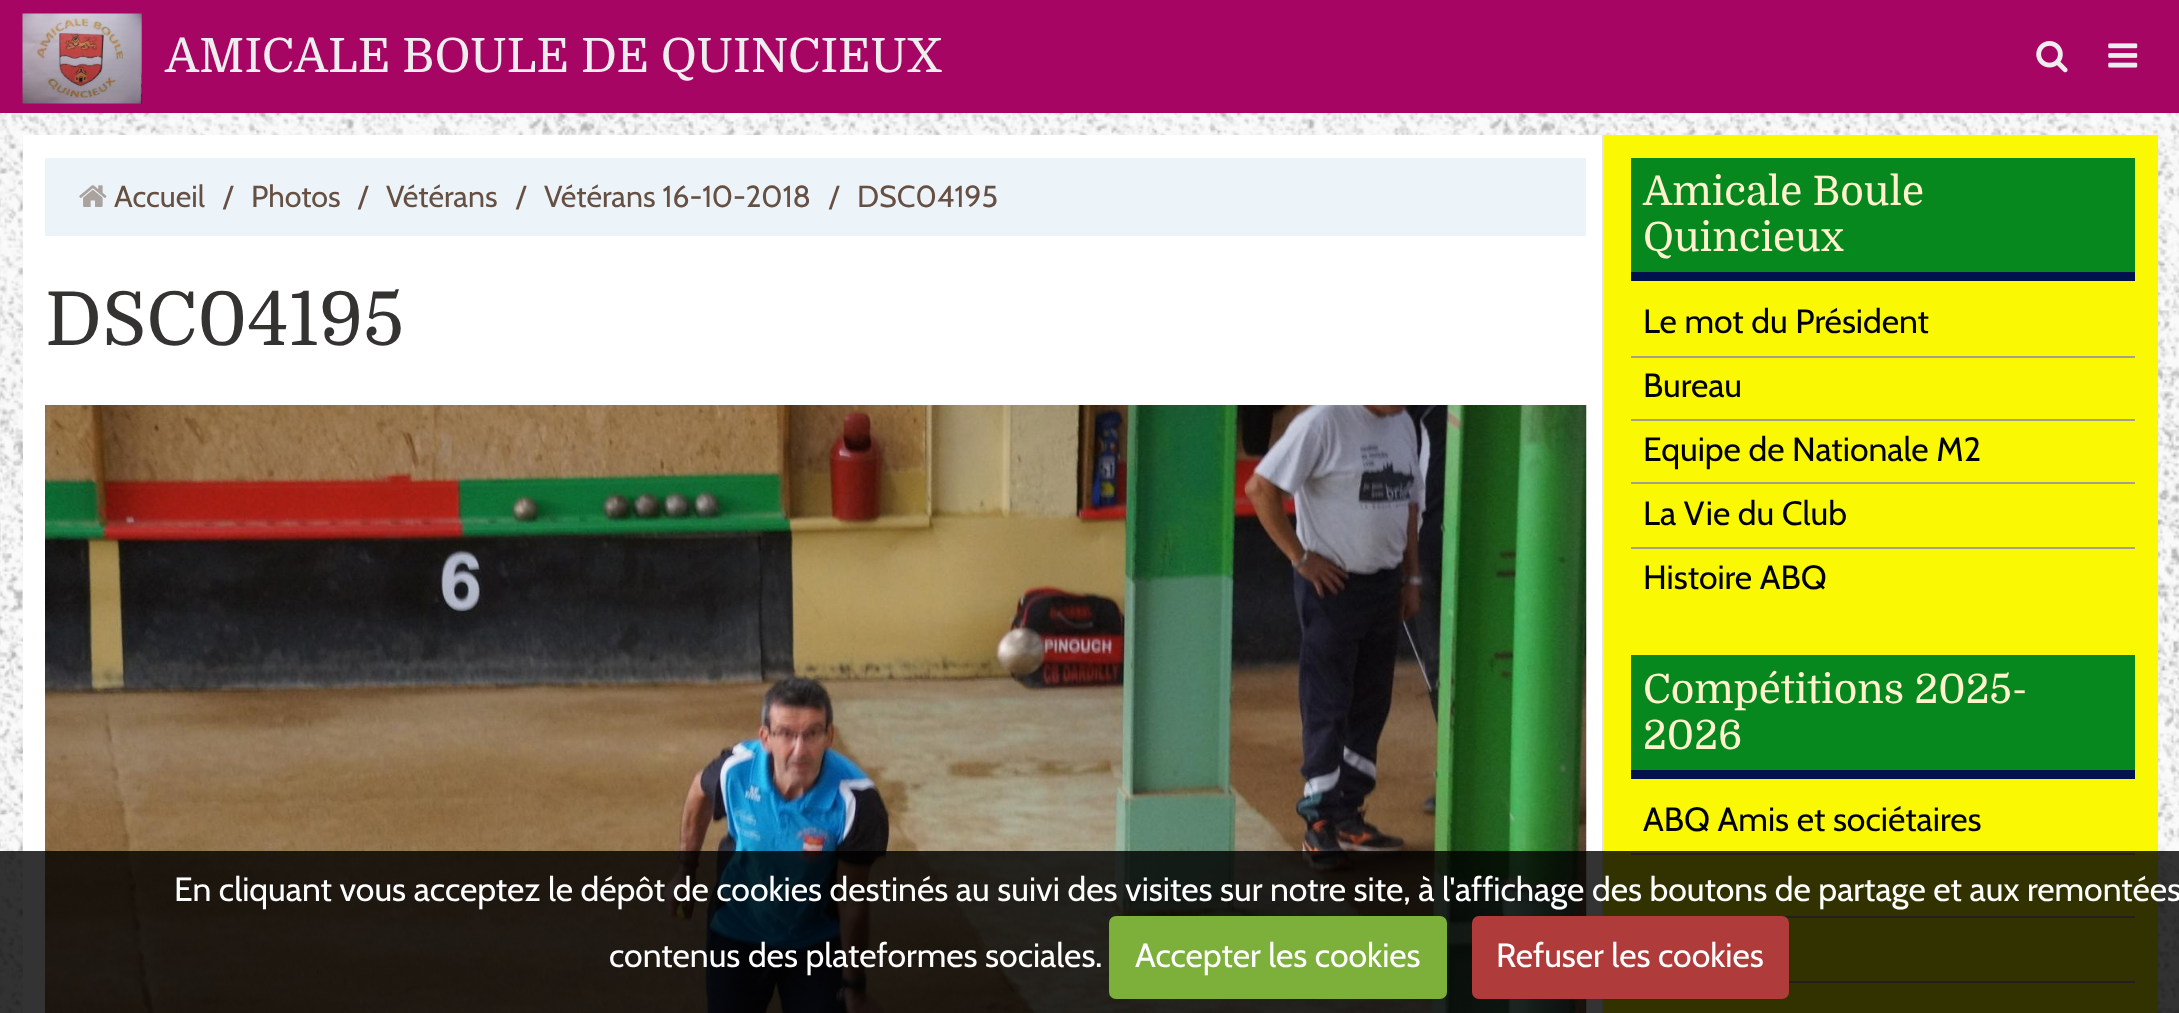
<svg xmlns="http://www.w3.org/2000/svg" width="2179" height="1013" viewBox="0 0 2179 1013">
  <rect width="100%" height="100%" fill="rgb(255,255,255)"/>
  <image x="0" y="113" width="2179" height="900" href="pic1.png"/>
  <rect x="0" y="0" width="2179" height="113" fill="rgb(167,5,100)"/>
  <image x="22" y="13" width="120" height="91" href="pic2.png"/>
  <text x="165" y="72" font-family="Domine" font-size="47.25" fill="rgb(238,238,238)">AMICALE BOULE DE QUINCIEUX</text>
  <image x="2036" y="41" width="32" height="32" href="pic3.png"/>
  <image x="2108" y="43" width="30" height="25" href="pic4.png"/>
  <rect x="23" y="135" width="1579" height="878" fill="rgb(255,255,255)"/>
  <rect x="1604" y="135" width="554" height="878" fill="rgb(251,248,4)"/>
  <rect x="1602" y="135" width="2" height="878" fill="rgb(231,228,221)"/>
  <rect x="45" y="158" width="1541" height="78" fill="rgb(237,244,249)"/>
  <image x="79" y="185" width="28" height="22" href="pic5.png"/>
  <g font-family="Cabin" font-size="30.4" fill="rgb(102,80,67)">
    <text x="114" y="207">Accueil</text>
    <text x="223" y="207">/</text>
    <text x="251" y="207">Photos</text>
    <text x="358" y="207">/</text>
    <text x="386" y="207">Vétérans</text>
    <text x="516" y="207">/</text>
    <text x="544" y="207">Vétérans 16-10-2018</text>
    <text x="829" y="207">/</text>
    <text x="857" y="207">DSC04195</text>
  </g>
  <text x="45" y="345" font-family="Domine" font-size="74.25" fill="rgb(53,51,50)">DSC04195</text>
  <image x="45" y="405" width="1542" height="608" href="pic6.png"/>
  <rect x="1631" y="158" width="504" height="114" fill="rgb(6,136,31)"/>
  <rect x="1631" y="272" width="504" height="9" fill="rgb(0,18,75)"/>
  <g font-family="Domine" font-size="40.5" fill="rgb(255,242,204)">
    <text>
      <tspan x="1643" y="205">Amicale Boule</tspan>
      <tspan x="1643" y="251">Quincieux</tspan>
    </text>
  </g>
  <rect x="1631" y="356" width="504" height="2" fill="rgb(167,159,141)"/>
  <text x="1643" y="333" font-family="Cabin" font-size="33.75" fill="rgb(0,0,0)">Le mot du Président</text>
  <rect x="1631" y="419" width="504" height="2" fill="rgb(167,159,141)"/>
  <text x="1643" y="397" font-family="Cabin" font-size="33.75" fill="rgb(0,0,0)">Bureau</text>
  <rect x="1631" y="482" width="504" height="2" fill="rgb(167,159,141)"/>
  <text x="1643" y="461" font-family="Cabin" font-size="33.75" fill="rgb(0,0,0)">Equipe de Nationale M2</text>
  <rect x="1631" y="547" width="504" height="2" fill="rgb(167,159,141)"/>
  <g font-family="Cabin" font-size="33.75" fill="rgb(0,0,0)">
    <text>
      <tspan x="1643" y="525">La Vie du Club</tspan>
      <tspan x="1643" y="589">Histoire ABQ</tspan>
    </text>
  </g>
  <rect x="1631" y="655" width="504" height="115" fill="rgb(6,136,31)"/>
  <rect x="1631" y="770" width="504" height="9" fill="rgb(0,18,75)"/>
  <g font-family="Domine" font-size="40.5" fill="rgb(255,242,204)">
    <text>
      <tspan x="1643" y="703">Compétitions 2025-</tspan>
      <tspan x="1643" y="749">2026</tspan>
    </text>
  </g>
  <rect x="1631" y="853" width="504" height="2" fill="rgb(167,159,141)"/>
  <text x="1643" y="831" font-family="Cabin" font-size="33.75" fill="rgb(0,0,0)">ABQ Amis et sociétaires</text>
  <rect x="1782" y="916" width="353" height="2" fill="rgb(167,159,141)"/>
  <rect x="1789" y="981" width="346" height="2" fill="rgb(167,159,141)"/>
  <rect x="0" y="851" width="2179" height="162" fill="rgba(0,0,0,0.8)"/>
  <g font-family="Cabin" font-size="33.75" fill="rgb(255,255,255)">
    <text x="174" y="901">En cliquant vous acceptez le dépôt de cookies destinés au suivi des visites sur notre site, à l'affichage des boutons de partage et aux remontées</text>
    <text x="609" y="967">contenus des plateformes sociales.</text>
  </g>
  <rect x="1109" y="916" width="338" height="83" rx="7" fill="rgb(125,175,59)"/>
  <text x="1135" y="967" font-family="Cabin" font-size="33.75" fill="rgb(255,255,255)">Accepter les cookies</text>
  <rect x="1472" y="916" width="317" height="83" rx="7" fill="rgb(175,59,59)"/>
  <text x="1496" y="967" font-family="Cabin" font-size="33.75" fill="rgb(255,255,255)">Refuser les cookies</text>
</svg>
